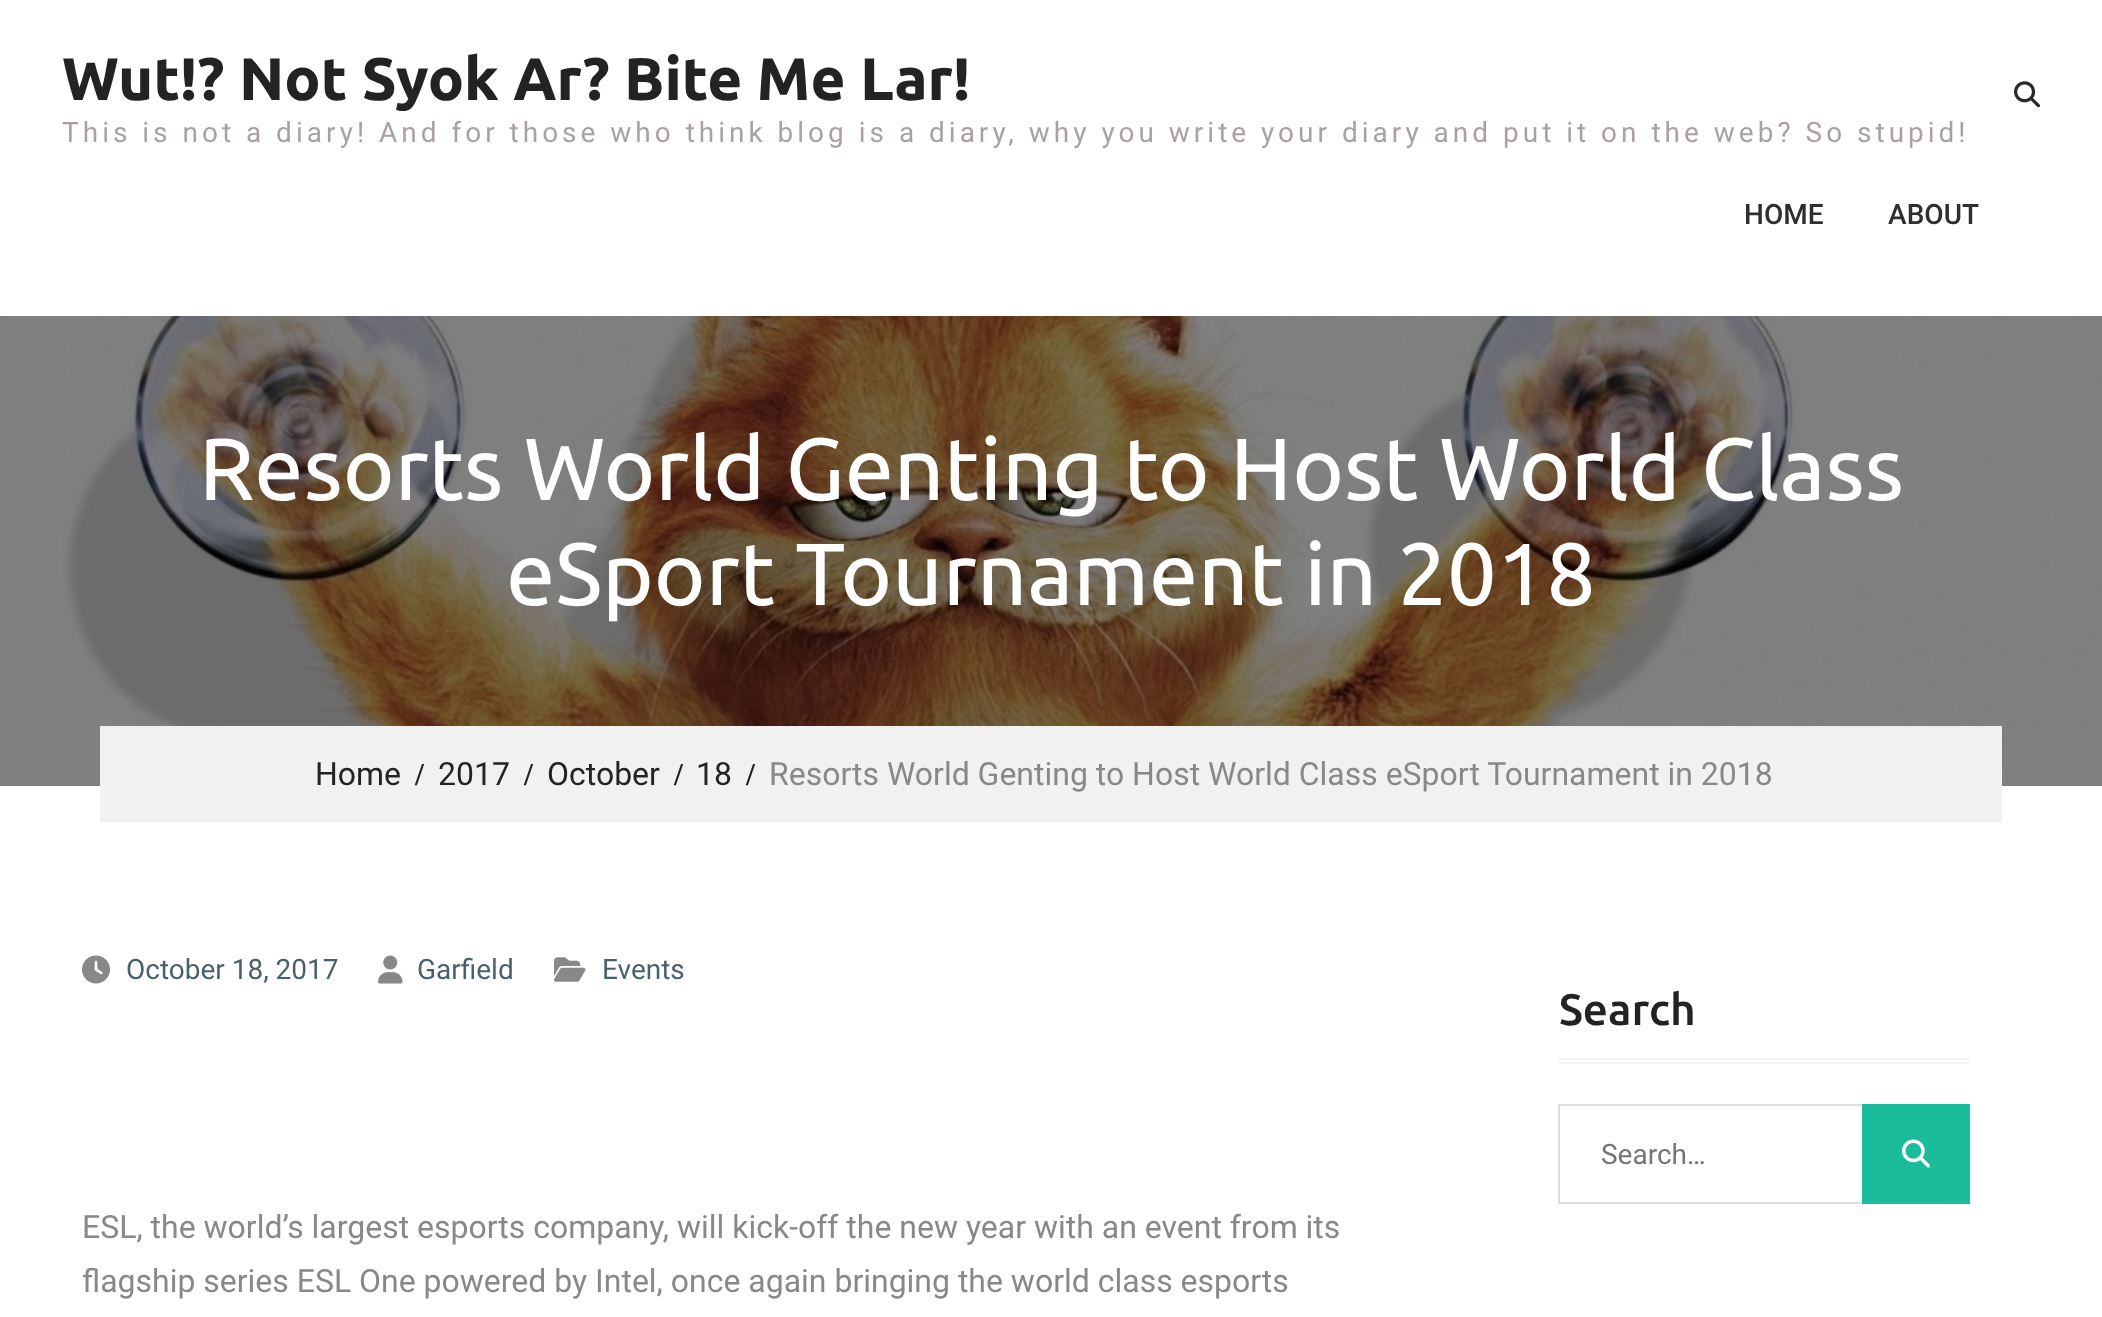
<svg xmlns="http://www.w3.org/2000/svg" width="2102" height="1317" viewBox="0 0 2102 1317">
  <rect width="100%" height="100%" fill="rgb(255,255,255)"/>
  <text x="62" y="100" font-family="Ubuntu" font-size="60" font-weight="bold" fill="rgb(35,35,35)">Wut!? Not Syok Ar? Bite Me Lar!</text>
  <text x="62" y="142" font-family="Roboto" font-size="28" letter-spacing="4" fill="rgb(171,160,160)">This is not a diary! And for those who think blog is a diary, why you write your diary and put it on the web? So stupid!</text>
  <image x="2014" y="81" width="26" height="27" href="pic1.png"/>
  <g font-family="Roboto" font-size="28" font-weight="500" fill="rgb(47,47,47)">
    <text x="1744" y="224">HOME</text>
    <text x="1888" y="224">ABOUT</text>
  </g>
  <image x="0" y="316" width="2102" height="470" href="pic2.png"/>
  <g font-family="Ubuntu" font-size="88" fill="rgb(255,255,255)">
    <text x="199" y="500">Resorts World Genting to Host World Class</text>
    <text x="506" y="605">eSport Tournament in 2018</text>
  </g>
  <rect x="100" y="726" width="1902" height="96" fill="rgb(241,241,241)"/>
  <text x="315" y="785" font-family="Roboto" font-size="32" fill="rgb(35,35,35)">Home</text>
  <text x="415" y="785" font-family="Liberation Serif" font-size="32" font-weight="bold" fill="rgb(35,35,35)">/</text>
  <text x="438" y="785" font-family="Roboto" font-size="32" fill="rgb(35,35,35)">2017</text>
  <text x="524" y="785" font-family="Liberation Serif" font-size="32" font-weight="bold" fill="rgb(35,35,35)">/</text>
  <text x="547" y="785" font-family="Roboto" font-size="32" fill="rgb(35,35,35)">October</text>
  <text x="674" y="785" font-family="Liberation Serif" font-size="32" font-weight="bold" fill="rgb(35,35,35)">/</text>
  <text x="696" y="785" font-family="Roboto" font-size="32" fill="rgb(35,35,35)">18</text>
  <text x="746" y="785" font-family="Liberation Serif" font-size="32" font-weight="bold" fill="rgb(35,35,35)">/</text>
  <text x="769" y="785" font-family="Roboto" font-size="32" fill="rgb(136,136,136)">Resorts World Genting to Host World Class eSport Tournament in 2018</text>
  <image x="82" y="955" width="28" height="29" href="pic3.png"/>
  <text x="126" y="979" font-family="Roboto" font-size="28" fill="rgb(73,97,107)">October 18, 2017</text>
  <image x="378" y="955" width="25" height="29" href="pic4.png"/>
  <text x="417" y="979" font-family="Roboto" font-size="28" fill="rgb(73,97,107)">Garfield</text>
  <image x="554" y="957" width="32" height="25" href="pic5.png"/>
  <text x="602" y="979" font-family="Roboto" font-size="28" fill="rgb(73,97,107)">Events</text>
  <g font-family="Roboto" font-size="32" fill="rgb(136,136,136)">
    <text>
      <tspan x="82" y="1238">ESL, the world’s largest esports company, will kick-off the new year with an event from its</tspan>
      <tspan x="82" y="1292">flagship series ESL One powered by Intel, once again bringing the world class esports</tspan>
    </text>
  </g>
  <rect x="1558" y="1058" width="412" height="2" fill="rgb(247,246,246)"/>
  <rect x="1558" y="1062" width="412" height="2" fill="rgb(247,246,246)"/>
  <text x="1559" y="1025" font-family="Ubuntu" font-size="44" font-weight="500" fill="rgb(35,35,35)">Search</text>
  <rect x="1559" y="1105" width="410" height="98" fill="none" stroke="rgb(221,221,221)" stroke-width="2"/>
  <text x="1601" y="1164" font-family="Roboto" font-size="28" fill="rgb(117,117,117)">Search…</text>
  <rect x="1862" y="1104" width="108" height="100" fill="rgb(26,188,156)"/>
  <image x="1902" y="1139" width="28" height="29" href="pic6.png"/>
</svg>
